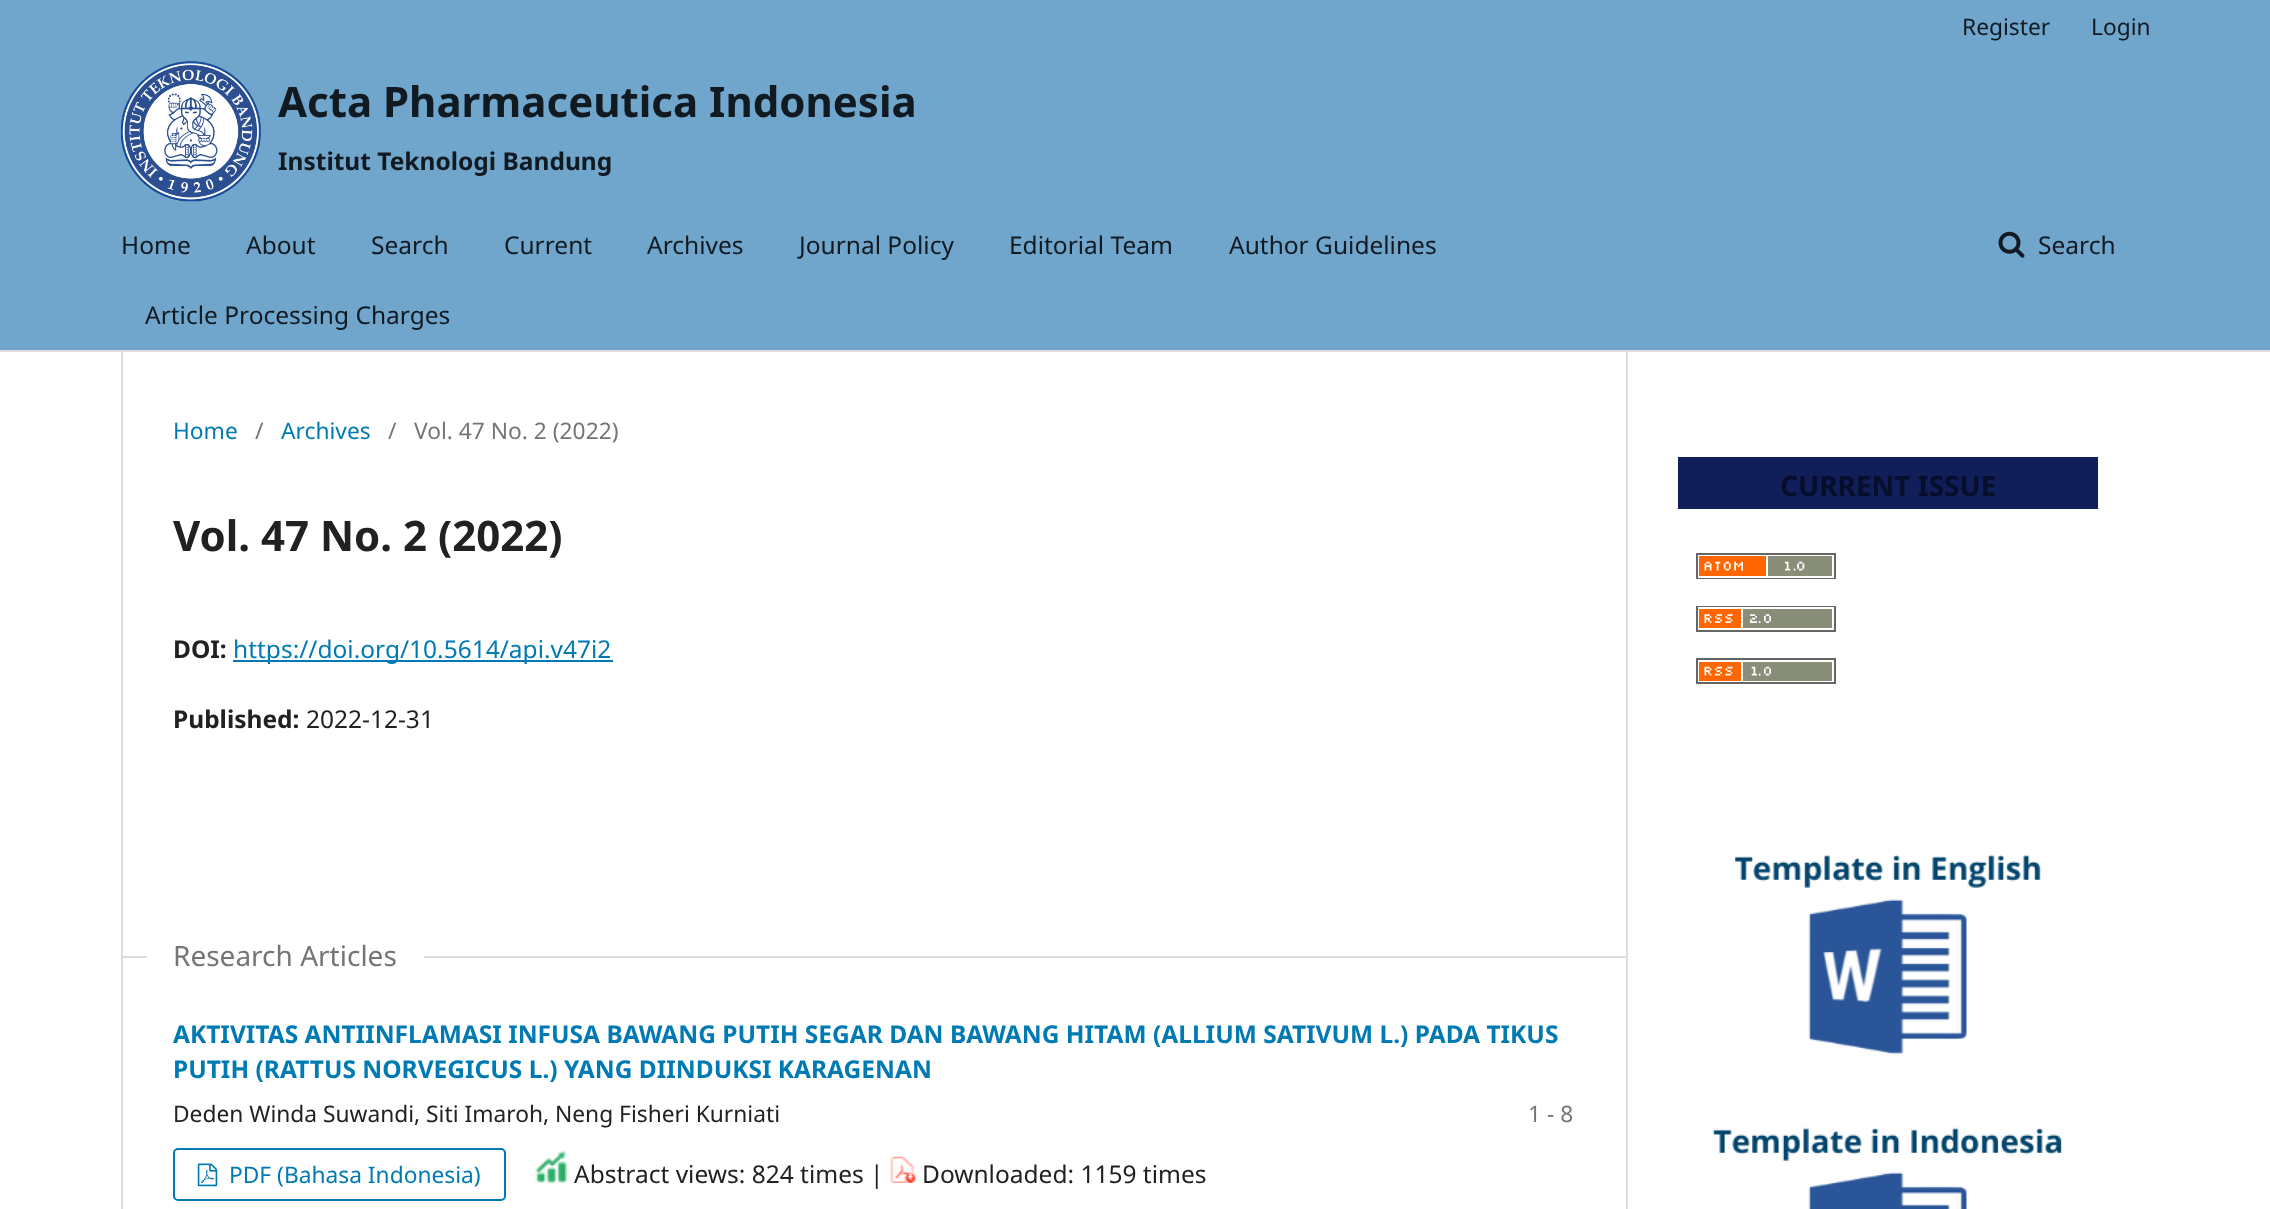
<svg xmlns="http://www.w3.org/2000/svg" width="2270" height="1209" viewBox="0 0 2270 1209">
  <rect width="100%" height="100%" fill="rgb(255,255,255)"/>
  <rect x="0" y="0" width="2270" height="350" fill="rgb(112,165,204)"/>
  <rect x="0" y="350" width="2270" height="2" fill="rgb(221,221,221)"/>
  <g font-family="Noto Sans" font-size="22.75" fill="rgb(18,26,33)">
    <text x="1962" y="35">Register</text>
    <text x="2091" y="35">Login</text>
  </g>
  <g font-family="Noto Sans" font-size="24.5" fill="rgb(18,26,33)">
    <text x="121" y="254">Home</text>
    <text x="246" y="254">About</text>
    <text x="371" y="254">Search</text>
    <text x="504" y="254">Current</text>
    <text x="647" y="254">Archives</text>
    <text x="799" y="254">Journal Policy</text>
    <text x="1009" y="254">Editorial Team</text>
    <text x="1229" y="254">Author Guidelines</text>
    <text x="145" y="324">Article Processing Charges</text>
  </g>
  <image x="1998" y="231" width="27" height="27" href="pic1.png"/>
  <text x="2038" y="254" font-family="Noto Sans" font-size="24.5" fill="rgb(18,26,33)">Search</text>
  <image x="120" y="61" width="141" height="141" href="pic2.png"/>
  <text x="278" y="117" font-family="Noto Sans" font-size="42" font-weight="bold" fill="rgb(18,26,33)">Acta Pharmaceutica Indonesia</text>
  <text x="278" y="170" font-family="Noto Sans" font-size="24.5" font-weight="bold" fill="rgb(18,26,33)">Institut Teknologi Bandung</text>
  <rect x="121" y="352" width="2" height="857" fill="rgb(221,221,221)"/>
  <text x="173" y="439" font-family="Noto Sans" font-size="22.75" fill="rgb(0,122,178)">Home</text>
  <text x="255" y="439" font-family="Noto Sans" font-size="22.75" fill="rgb(117,117,117)">/</text>
  <text x="281" y="439" font-family="Noto Sans" font-size="22.75" fill="rgb(0,122,178)">Archives</text>
  <g font-family="Noto Sans" font-size="22.75" fill="rgb(117,117,117)">
    <text x="388" y="439">/</text>
    <text x="414" y="439">Vol. 47 No. 2 (2022)</text>
  </g>
  <text x="173" y="551" font-family="Noto Sans" font-size="42" font-weight="bold" fill="rgb(33,33,33)">Vol. 47 No. 2 (2022)</text>
  <text x="173" y="658" font-family="Noto Sans" font-size="24.5" font-weight="bold" fill="rgb(33,33,33)">DOI:</text>
  <rect x="233" y="660" width="380" height="2" fill="rgb(0,122,178)"/>
  <text x="233" y="658" font-family="Noto Sans" font-size="24.5" fill="rgb(0,122,178)">https://doi.org/10.5614/api.v47i2</text>
  <text x="173" y="728" font-family="Noto Sans" font-size="24.5" font-weight="bold" fill="rgb(33,33,33)">Published:</text>
  <text x="306" y="728" font-family="Noto Sans" font-size="24.5" fill="rgb(33,33,33)">2022-12-31</text>
  <rect x="121" y="956" width="1505" height="2" fill="rgb(221,221,221)"/>
  <rect x="147" y="956" width="277" height="2" fill="rgb(255,255,255)"/>
  <text x="173" y="966" font-family="Noto Sans" font-size="28" fill="rgb(117,117,117)">Research Articles</text>
  <g font-family="Noto Sans" font-size="24.5" font-weight="bold" fill="rgb(0,122,178)">
    <text>
      <tspan x="173" y="1043">AKTIVITAS ANTIINFLAMASI INFUSA BAWANG PUTIH SEGAR DAN BAWANG HITAM (ALLIUM SATIVUM L.) PADA TIKUS</tspan>
      <tspan x="173" y="1078">PUTIH (RATTUS NORVEGICUS L.) YANG DIINDUKSI KARAGENAN</tspan>
    </text>
  </g>
  <text x="173" y="1122" font-family="Noto Sans" font-size="22.75" fill="rgb(33,33,33)">Deden Winda Suwandi, Siti Imaroh, Neng Fisheri Kurniati</text>
  <text x="1528" y="1122" font-family="Noto Sans" font-size="22.75" fill="rgb(117,117,117)">1 - 8</text>
  <rect x="174" y="1149" width="331" height="51" rx="4" fill="none" stroke="rgb(0,122,178)" stroke-width="2"/>
  <image x="197" y="1163" width="21" height="24" href="pic3.png"/>
  <text x="229" y="1183" font-family="Noto Sans" font-size="22.75" fill="rgb(0,122,178)">PDF (Bahasa Indonesia)</text>
  <image x="535" y="1151" width="32" height="32" href="pic4.png"/>
  <text x="574" y="1183" font-family="Noto Sans" font-size="24.5" fill="rgb(33,33,33)">Abstract views: 824 times |</text>
  <image x="890" y="1156" width="26" height="27" href="pic5.png"/>
  <text x="922" y="1183" font-family="Noto Sans" font-size="24.5" fill="rgb(33,33,33)">Downloaded: 1159 times</text>
  <rect x="1626" y="352" width="2" height="857" fill="rgb(221,221,221)"/>
  <rect x="1678" y="457" width="420" height="52" fill="rgb(16,30,90)"/>
  <text x="1780" y="496" font-family="Noto Sans" font-size="28" font-weight="bold" fill="rgb(7,14,41)">CURRENT ISSUE</text>
  <image x="1696" y="553" width="140" height="26" href="pic6.png"/>
  <image x="1696" y="606" width="140" height="26" href="pic7.png"/>
  <image x="1696" y="658" width="140" height="26" href="pic8.png"/>
  <image x="1735" y="854" width="306" height="201" href="pic9.png"/>
  <image x="1712" y="1127" width="350" height="82" href="pic10.png"/>
</svg>
